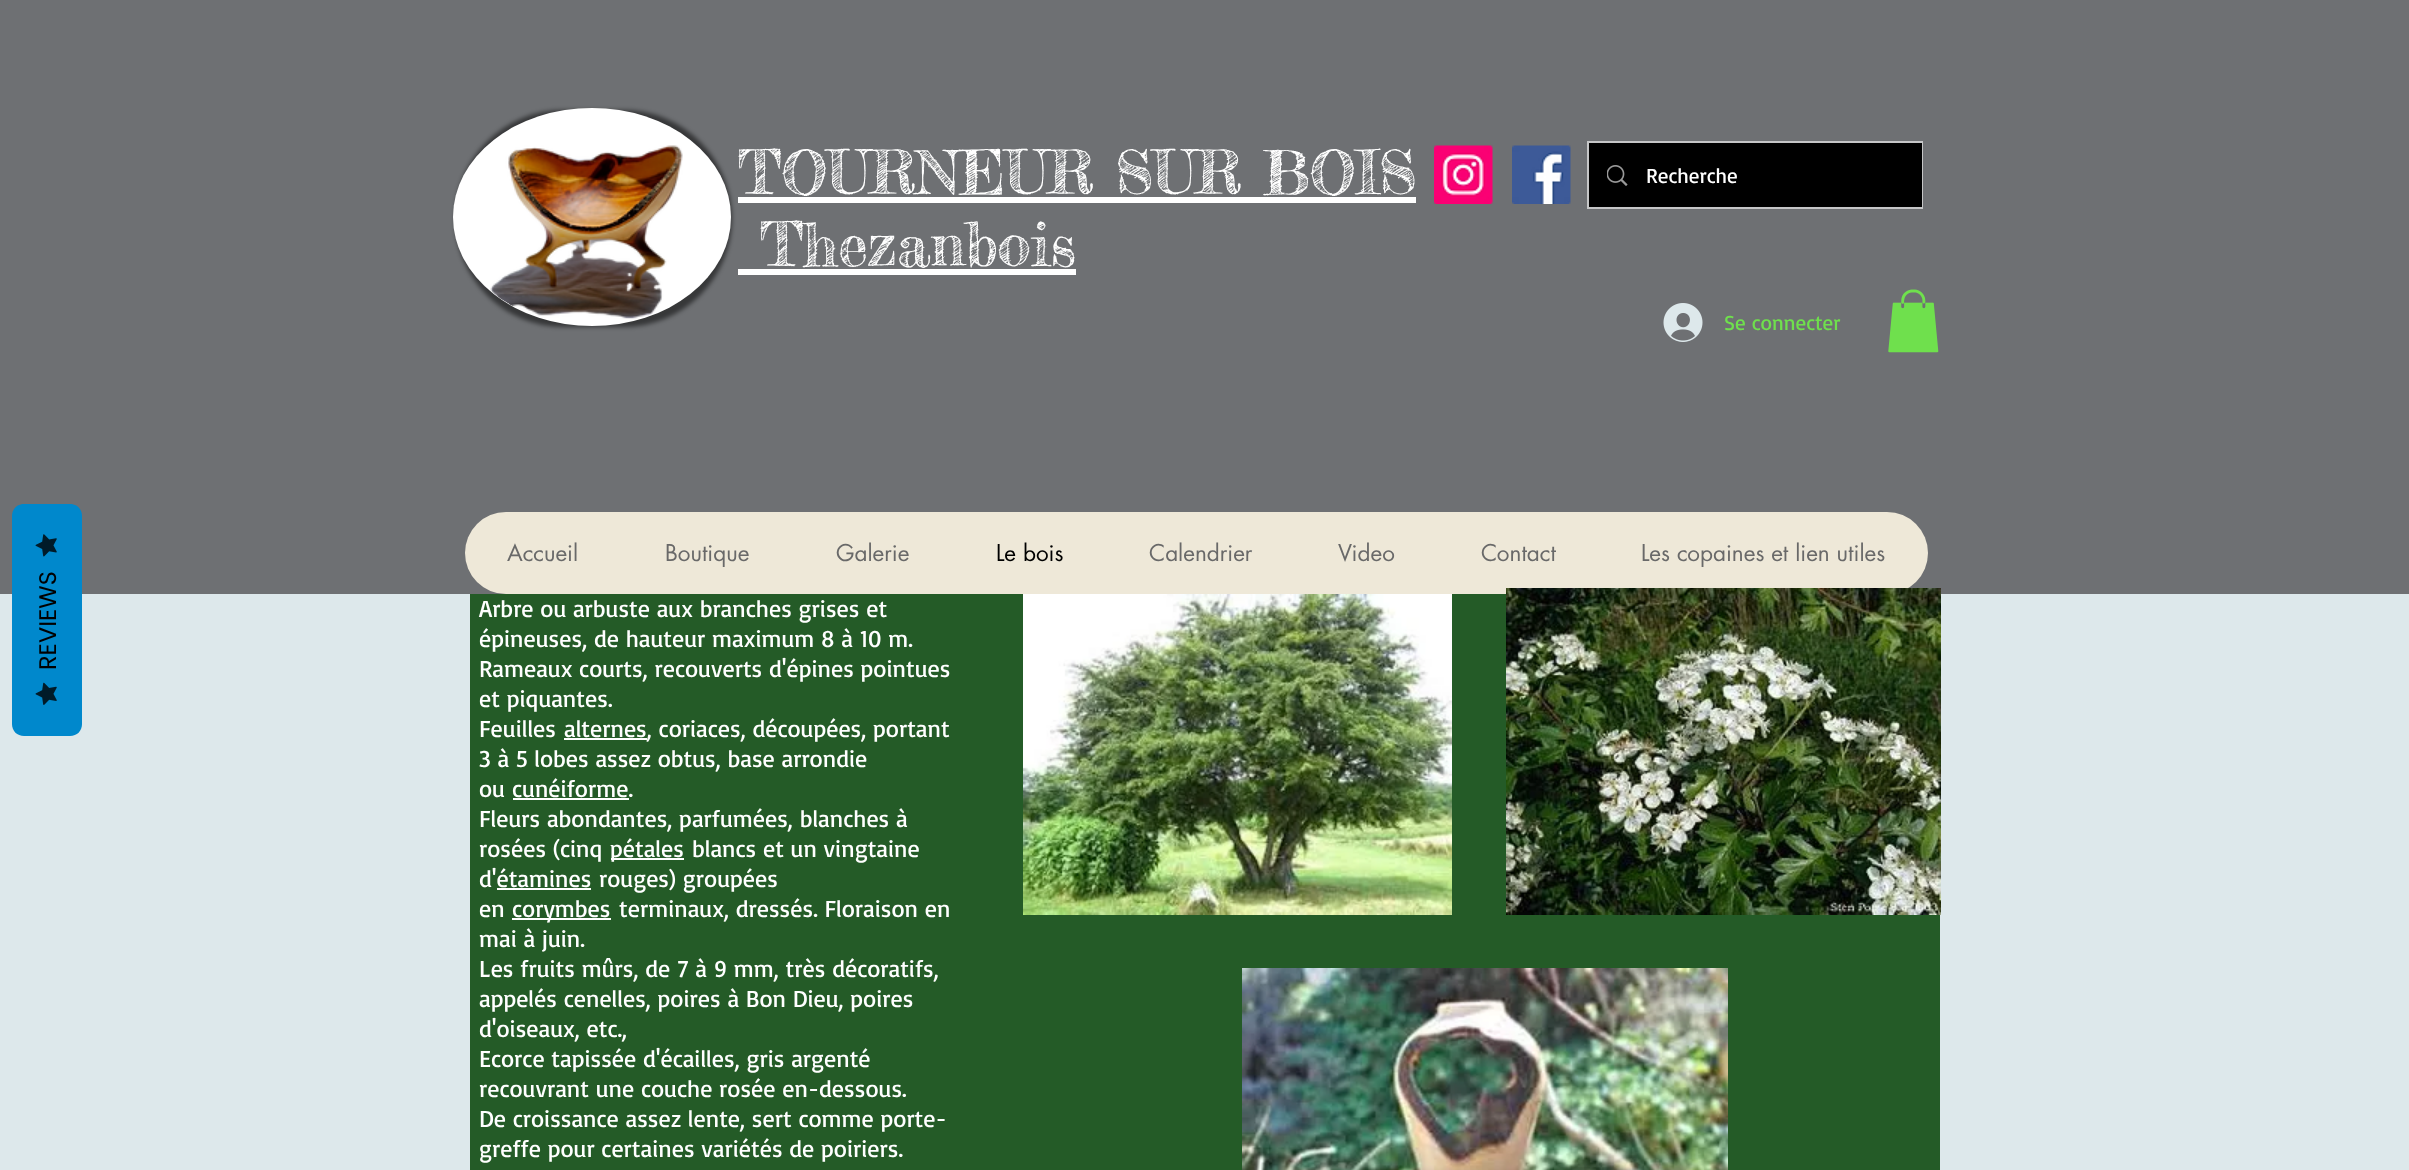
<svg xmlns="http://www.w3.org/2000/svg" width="2409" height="1170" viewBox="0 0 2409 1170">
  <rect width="100%" height="100%" fill="rgb(221,232,235)"/>
  <rect x="0" y="0" width="2409" height="594" fill="rgb(110,112,115)"/>
  <path d="M12 724V516C12 509 17 504 24 504H70C77 504 82 509 82 516V724C82 731 77 736 70 736H24C17 736 12 731 12 724Z" fill="rgb(0,136,204)"/>
  <image x="35" y="534" width="22" height="23" href="pic1.png"/>
  <text x="56" y="670" transform="rotate(-90 56 670)" font-family="Poppins" font-size="24" fill="rgb(0,0,0)">REVIEWS</text>
  <image x="35" y="682" width="22" height="23" href="pic2.png"/>
  <rect x="455" y="110" width="277" height="217" rx="108.5" fill="rgba(0,0,0,0.5)" filter="blur(2px)"/>
  <ellipse cx="592" cy="217" rx="139" ry="109" fill="rgb(255,255,255)"/>
  <image x="490" y="145" width="193" height="174" href="pic3.png"/>
  <text x="738" y="194" font-family="Fredericka the Great" font-size="60" fill="rgb(255,255,255)">TOURNEUR SUR BOIS</text>
  <rect x="738" y="197" width="678" height="6" fill="rgb(255,255,255)"/>
  <text x="760" y="266" font-family="Fredericka the Great" font-size="60" fill="rgb(255,255,255)">Thezanbois</text>
  <rect x="738" y="269" width="338" height="6" fill="rgb(255,255,255)"/>
  <image x="1434" y="145" width="59" height="59" href="pic4.png"/>
  <image x="1512" y="145" width="59" height="59" href="pic5.png"/>
  <rect x="1588" y="142" width="334" height="66" fill="none" stroke="rgb(197,198,199)" stroke-width="2"/>
  <rect x="1589" y="143" width="333" height="64" fill="rgb(0,0,0)"/>
  <image x="1607" y="165" width="21" height="21" href="pic6.png"/>
  <text x="1646" y="183" font-family="Basic" font-size="21" fill="rgb(255,255,255)">Recherche</text>
  <image x="1663" y="303" width="40" height="39" href="pic7.png"/>
  <text x="1724" y="330" font-family="Basic" font-size="21" fill="rgb(111,224,77)">Se connecter</text>
  <image x="1888" y="289" width="51" height="64" href="pic8.png"/>
  <rect x="465" y="512" width="1463" height="82" rx="41" fill="rgb(238,232,216)"/>
  <g font-family="futura" font-size="22.5" fill="rgb(105,105,105)">
    <text x="507" y="561">Accueil</text>
    <text x="665" y="561">Boutique</text>
    <text x="836" y="561">Galerie</text>
  </g>
  <text x="996" y="561" font-family="futura" font-size="22.5" fill="rgb(0,0,0)">Le bois</text>
  <g font-family="futura" font-size="22.5" fill="rgb(105,105,105)">
    <text x="1149" y="561">Calendrier</text>
    <text x="1338" y="561">Video</text>
    <text x="1481" y="561">Contact</text>
    <text x="1641" y="561">Les copaines et lien utiles</text>
  </g>
  <rect x="470" y="594" width="1470" height="576" fill="rgb(36,91,39)"/>
  <g font-family="Basic" font-size="24" fill="rgb(255,255,255)">
    <text>
      <tspan x="479" y="617">Arbre ou arbuste aux branches grises et</tspan>
      <tspan x="479" y="647">épineuses, de hauteur maximum 8 à 10 m.</tspan>
      <tspan x="479" y="677">Rameaux courts, recouverts d'épines pointues</tspan>
      <tspan x="479" y="707">et piquantes.</tspan>
      <tspan x="479" y="737">Feuilles</tspan>
    </text>
  </g>
  <rect x="564" y="738" width="83" height="2" fill="rgb(255,255,255)"/>
  <g font-family="Basic" font-size="24" fill="rgb(255,255,255)">
    <text x="564" y="737">alternes, coriaces, découpées, portant</text>
    <text>
      <tspan x="479" y="767">3 à 5 lobes assez obtus, base arrondie</tspan>
      <tspan x="479" y="797">ou</tspan>
    </text>
    <text x="512" y="797">cunéiforme.</text>
  </g>
  <rect x="513" y="798" width="116" height="2" fill="rgb(255,255,255)"/>
  <g font-family="Basic" font-size="24" fill="rgb(255,255,255)">
    <text>
      <tspan x="479" y="827">Fleurs abondantes, parfumées, blanches à</tspan>
      <tspan x="479" y="857">rosées (cinq</tspan>
    </text>
  </g>
  <rect x="611" y="858" width="73" height="2" fill="rgb(255,255,255)"/>
  <g font-family="Basic" font-size="24" fill="rgb(255,255,255)">
    <text x="610" y="857">pétales</text>
    <text x="692" y="857">blancs et un vingtaine</text>
    <text x="479" y="887">d'étamines</text>
    <text x="599" y="887">rouges) groupées</text>
  </g>
  <rect x="497" y="888" width="94" height="2" fill="rgb(255,255,255)"/>
  <text x="479" y="917" font-family="Basic" font-size="24" fill="rgb(255,255,255)">en</text>
  <rect x="512" y="918" width="99" height="2" fill="rgb(255,255,255)"/>
  <g font-family="Basic" font-size="24" fill="rgb(255,255,255)">
    <text x="512" y="917">corymbes</text>
    <text x="619" y="917">terminaux, dressés. Floraison en</text>
    <text>
      <tspan x="479" y="947">mai à juin.</tspan>
      <tspan x="479" y="977">Les fruits mûrs, de 7 à 9 mm, très décoratifs,</tspan>
      <tspan x="479" y="1007">appelés cenelles, poires à Bon Dieu, poires</tspan>
      <tspan x="479" y="1037">d'oiseaux, etc.,</tspan>
      <tspan x="479" y="1067">Ecorce tapissée d'écailles, gris argenté</tspan>
      <tspan x="479" y="1097">recouvrant une couche rosée en-dessous.</tspan>
      <tspan x="479" y="1127">De croissance assez lente, sert comme porte-</tspan>
      <tspan x="479" y="1157">greffe pour certaines variétés de poiriers.</tspan>
    </text>
  </g>
  <image x="1023" y="594" width="429" height="321" href="pic9.png"/>
  <image x="1506" y="588" width="435" height="327" href="pic10.png"/>
  <image x="1242" y="968" width="486" height="202" href="pic11.png"/>
</svg>
